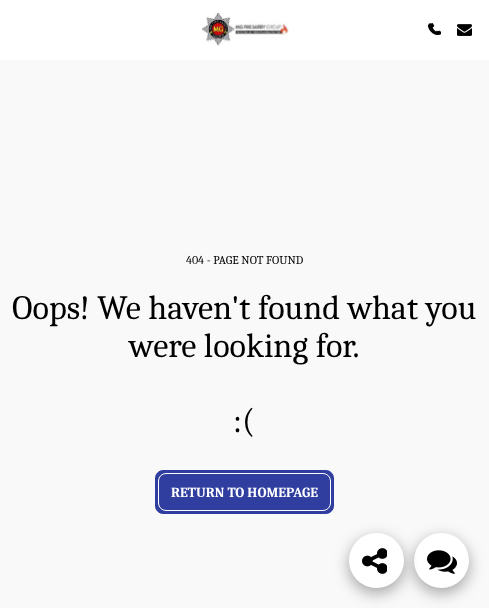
<svg xmlns="http://www.w3.org/2000/svg" width="489" height="608" viewBox="0 0 489 608">
  <rect width="100%" height="100%" fill="rgb(249,249,249)"/>
  <rect x="0" y="0" width="489" height="60" fill="rgb(255,255,255)"/>
  <image x="202" y="13" width="87" height="33" href="pic1.png"/>
  <image x="430" y="23" width="11" height="12" href="pic2.png"/>
  <image x="428" y="23" width="11" height="12" href="pic3.png"/>
  <image x="457" y="24" width="15" height="12" href="pic4.png"/>
  <text x="186" y="264" font-family="Caladea" font-size="12" fill="rgb(0,0,0)">404 - PAGE NOT FOUND</text>
  <g font-family="Caladea" font-size="34.2" fill="rgb(0,0,0)">
    <text x="12" y="319">Oops! We haven't found what you</text>
    <text x="129" y="357">were looking for.</text>
    <text x="233" y="432">:(</text>
  </g>
  <rect x="155.5" y="470.5" width="178" height="43" rx="7.5" fill="rgb(48,63,159)" stroke="rgb(48,63,159)"/>
  <rect x="158.5" y="473.5" width="172" height="37" rx="7.5" fill="none" stroke="rgb(255,255,255)"/>
  <text x="171" y="497" font-family="Caladea" font-size="14" font-weight="bold" fill="rgb(255,255,255)">RETURN TO HOMEPAGE</text>
  <rect x="414" y="538" width="55" height="55" rx="27.5" fill="rgba(0,0,0,0.35)" filter="blur(7.5px)"/>
  <circle cx="441.5" cy="560.5" r="27.5" fill="rgb(255,255,255)"/>
  <image x="427" y="550" width="30" height="24" href="pic6.png"/>
  <rect x="349" y="538" width="55" height="55" rx="27.5" fill="rgba(0,0,0,0.35)" filter="blur(7.5px)"/>
  <circle cx="376.5" cy="560.5" r="27.5" fill="rgb(255,255,255)"/>
  <image x="362" y="548" width="25" height="26" href="pic5.png"/>
</svg>
